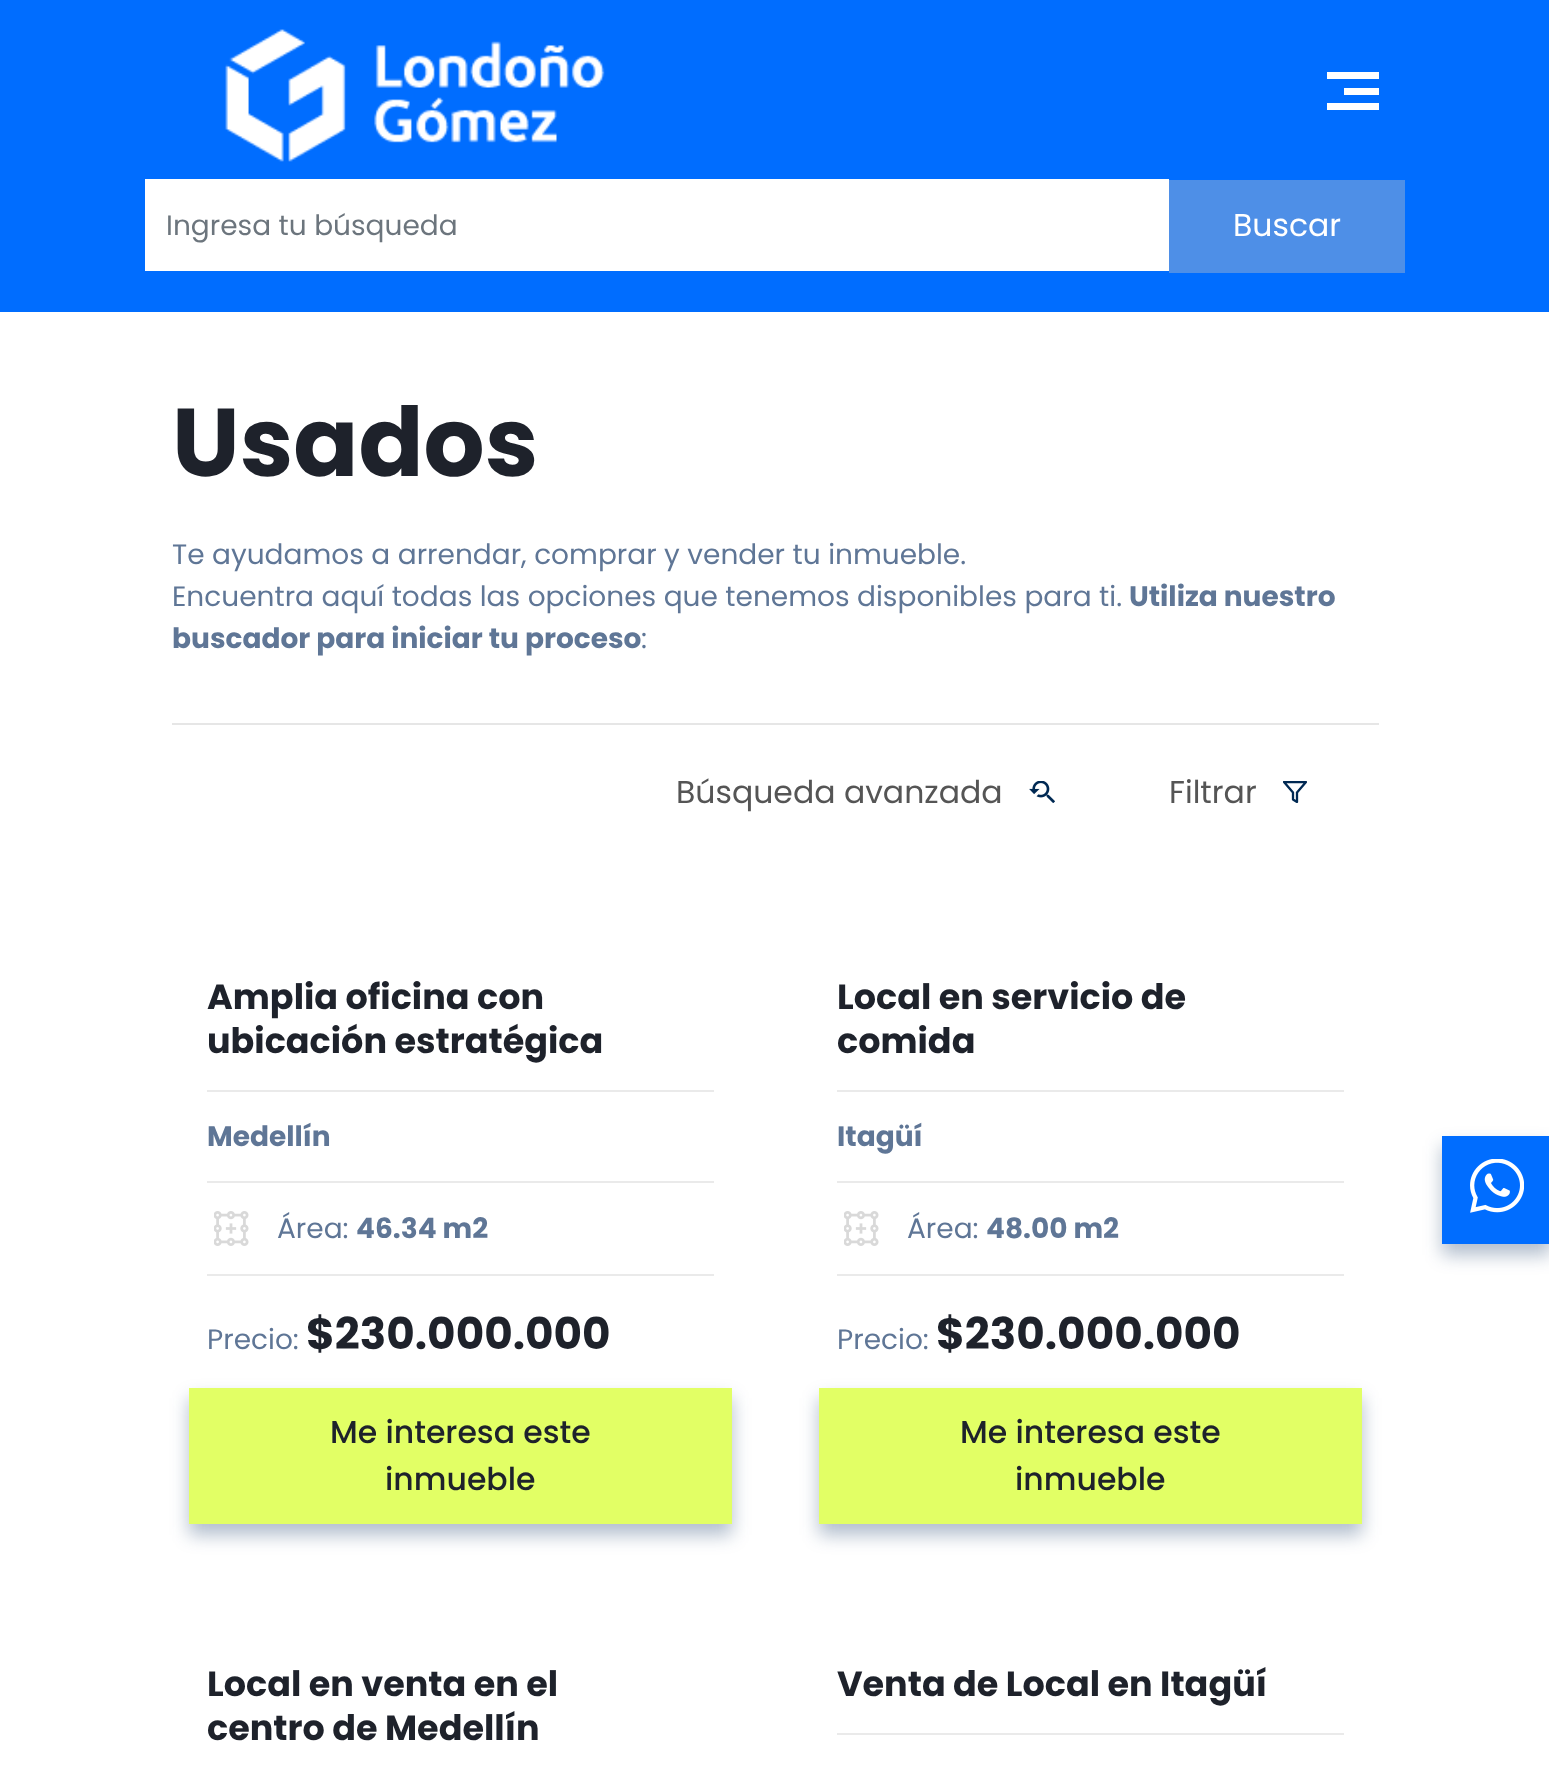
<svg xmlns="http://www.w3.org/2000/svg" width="1549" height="1775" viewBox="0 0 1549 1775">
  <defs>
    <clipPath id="clip1"><rect x="1283" y="781" width="24" height="22"/></clipPath>
  </defs>
  <rect width="100%" height="100%" fill="rgb(255,255,255)"/>
  <rect x="0" y="0" width="1549" height="312" fill="rgb(0,109,255)"/>
  <image x="225" y="29" width="380" height="133" href="pic1.png"/>
  <rect x="1327" y="72" width="52" height="7" fill="rgb(255,255,255)"/>
  <rect x="1344" y="88" width="35" height="7" fill="rgb(255,255,255)"/>
  <rect x="1327" y="103" width="52" height="7" fill="rgb(255,255,255)"/>
  <rect x="145" y="179" width="1024" height="92" fill="rgb(255,255,255)"/>
  <text x="166" y="235" font-family="Poppins" font-size="28" fill="rgb(108,117,125)">Ingresa tu búsqueda</text>
  <rect x="1169" y="180" width="236" height="93" fill="rgb(78,143,231)"/>
  <text x="1233" y="236" font-family="Poppins" font-size="31.5" fill="rgb(255,255,255)">Buscar</text>
  <rect x="172" y="723" width="1207" height="2" fill="rgb(230,230,230)"/>
  <text x="172" y="476" font-family="Poppins" font-size="96" font-weight="bold" fill="rgb(30,34,43)">Usados</text>
  <g font-family="Poppins" font-size="28" fill="rgb(95,118,150)">
    <text>
      <tspan x="172" y="564">Te ayudamos a arrendar, comprar y vender tu inmueble.</tspan>
      <tspan x="172" y="606">Encuentra aquí todas las opciones que tenemos disponibles para ti.</tspan>
    </text>
  </g>
  <g font-family="Poppins" font-size="28" font-weight="bold" fill="rgb(95,118,150)">
    <text x="1129" y="606">Utiliza nuestro</text>
    <text x="172" y="648">buscador para iniciar tu proceso</text>
  </g>
  <text x="641" y="648" font-family="Poppins" font-size="28" fill="rgb(95,118,150)">:</text>
  <text x="676" y="803" font-family="Poppins" font-size="31.5" fill="rgb(85,85,85)">Búsqueda avanzada</text>
  <image x="1029" y="781" width="26" height="22" href="pic2.png"/>
  <text x="1169" y="803" font-family="Poppins" font-size="31.5" fill="rgb(85,85,85)">Filtrar</text>
  <g clip-path="url(#clip1)">
    <path d="M1306 782H1284L1293 792.5V799.5L1297 802V792.5Z" fill="none" stroke="rgb(0,41,83)" stroke-width="2.3" stroke-linecap="round" stroke-linejoin="round"/>
  </g>
  <rect x="207" y="1090" width="507" height="2" fill="rgb(234,234,234)"/>
  <g font-family="Poppins" font-size="35" font-weight="bold" fill="rgb(30,34,43)">
    <text>
      <tspan x="207" y="1009">Amplia oficina con</tspan>
      <tspan x="207" y="1053">ubicación estratégica</tspan>
    </text>
  </g>
  <rect x="207" y="1181" width="507" height="2" fill="rgb(234,234,234)"/>
  <text x="207" y="1146" font-family="Poppins" font-size="28" font-weight="bold" fill="rgb(95,118,150)">Medellín</text>
  <rect x="207" y="1274" width="507" height="2" fill="rgb(234,234,234)"/>
  <image x="214" y="1211" width="35" height="35" href="pic3.png"/>
  <text x="277" y="1238" font-family="Poppins" font-size="28" fill="rgb(95,118,150)">Área:</text>
  <text x="356" y="1238" font-family="Poppins" font-size="28" font-weight="bold" fill="rgb(95,118,150)">46.34 m2</text>
  <text x="207" y="1349" font-family="Poppins" font-size="28" fill="rgb(95,118,150)">Precio:</text>
  <text x="306" y="1349" font-family="Poppins" font-size="43.75" font-weight="bold" fill="rgb(30,34,43)">$230.000.000</text>
  <rect x="189" y="1398" width="543" height="137" fill="rgba(0,41,88,0.3)" filter="blur(9px)"/>
  <rect x="189" y="1388" width="543" height="136" fill="rgb(226,255,101)"/>
  <g font-family="Poppins" font-size="31.5" font-weight="500" fill="rgb(30,34,43)">
    <text x="330" y="1443">Me interesa este</text>
    <text x="385" y="1490">inmueble</text>
  </g>
  <rect x="837" y="1090" width="507" height="2" fill="rgb(234,234,234)"/>
  <g font-family="Poppins" font-size="35" font-weight="bold" fill="rgb(30,34,43)">
    <text>
      <tspan x="837" y="1009">Local en servicio de</tspan>
      <tspan x="837" y="1053">comida</tspan>
    </text>
  </g>
  <rect x="837" y="1181" width="507" height="2" fill="rgb(234,234,234)"/>
  <text x="837" y="1146" font-family="Poppins" font-size="28" font-weight="bold" fill="rgb(95,118,150)">Itagüí</text>
  <rect x="837" y="1274" width="507" height="2" fill="rgb(234,234,234)"/>
  <image x="844" y="1211" width="35" height="35" href="pic3.png"/>
  <text x="907" y="1238" font-family="Poppins" font-size="28" fill="rgb(95,118,150)">Área:</text>
  <text x="986" y="1238" font-family="Poppins" font-size="28" font-weight="bold" fill="rgb(95,118,150)">48.00 m2</text>
  <text x="837" y="1349" font-family="Poppins" font-size="28" fill="rgb(95,118,150)">Precio:</text>
  <text x="936" y="1349" font-family="Poppins" font-size="43.75" font-weight="bold" fill="rgb(30,34,43)">$230.000.000</text>
  <rect x="819" y="1398" width="543" height="137" fill="rgba(0,41,88,0.3)" filter="blur(9px)"/>
  <rect x="819" y="1388" width="543" height="136" fill="rgb(226,255,101)"/>
  <g font-family="Poppins" font-size="31.5" font-weight="500" fill="rgb(30,34,43)">
    <text x="960" y="1443">Me interesa este</text>
    <text x="1015" y="1490">inmueble</text>
  </g>
  <g font-family="Poppins" font-size="35" font-weight="bold" fill="rgb(30,34,43)">
    <text>
      <tspan x="207" y="1696">Local en venta en el</tspan>
      <tspan x="207" y="1740">centro de Medellín</tspan>
    </text>
  </g>
  <rect x="837" y="1733" width="507" height="2" fill="rgb(234,234,234)"/>
  <text x="837" y="1696" font-family="Poppins" font-size="35" font-weight="bold" fill="rgb(30,34,43)">Venta de Local en Itagüí</text>
  <rect x="1442" y="1146" width="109" height="109" fill="rgba(0,41,88,0.3)" filter="blur(9px)"/>
  <rect x="1442" y="1136" width="107" height="108" fill="rgb(0,109,255)"/>
  <image x="1470" y="1159" width="54" height="54" href="pic4.png"/>
</svg>
